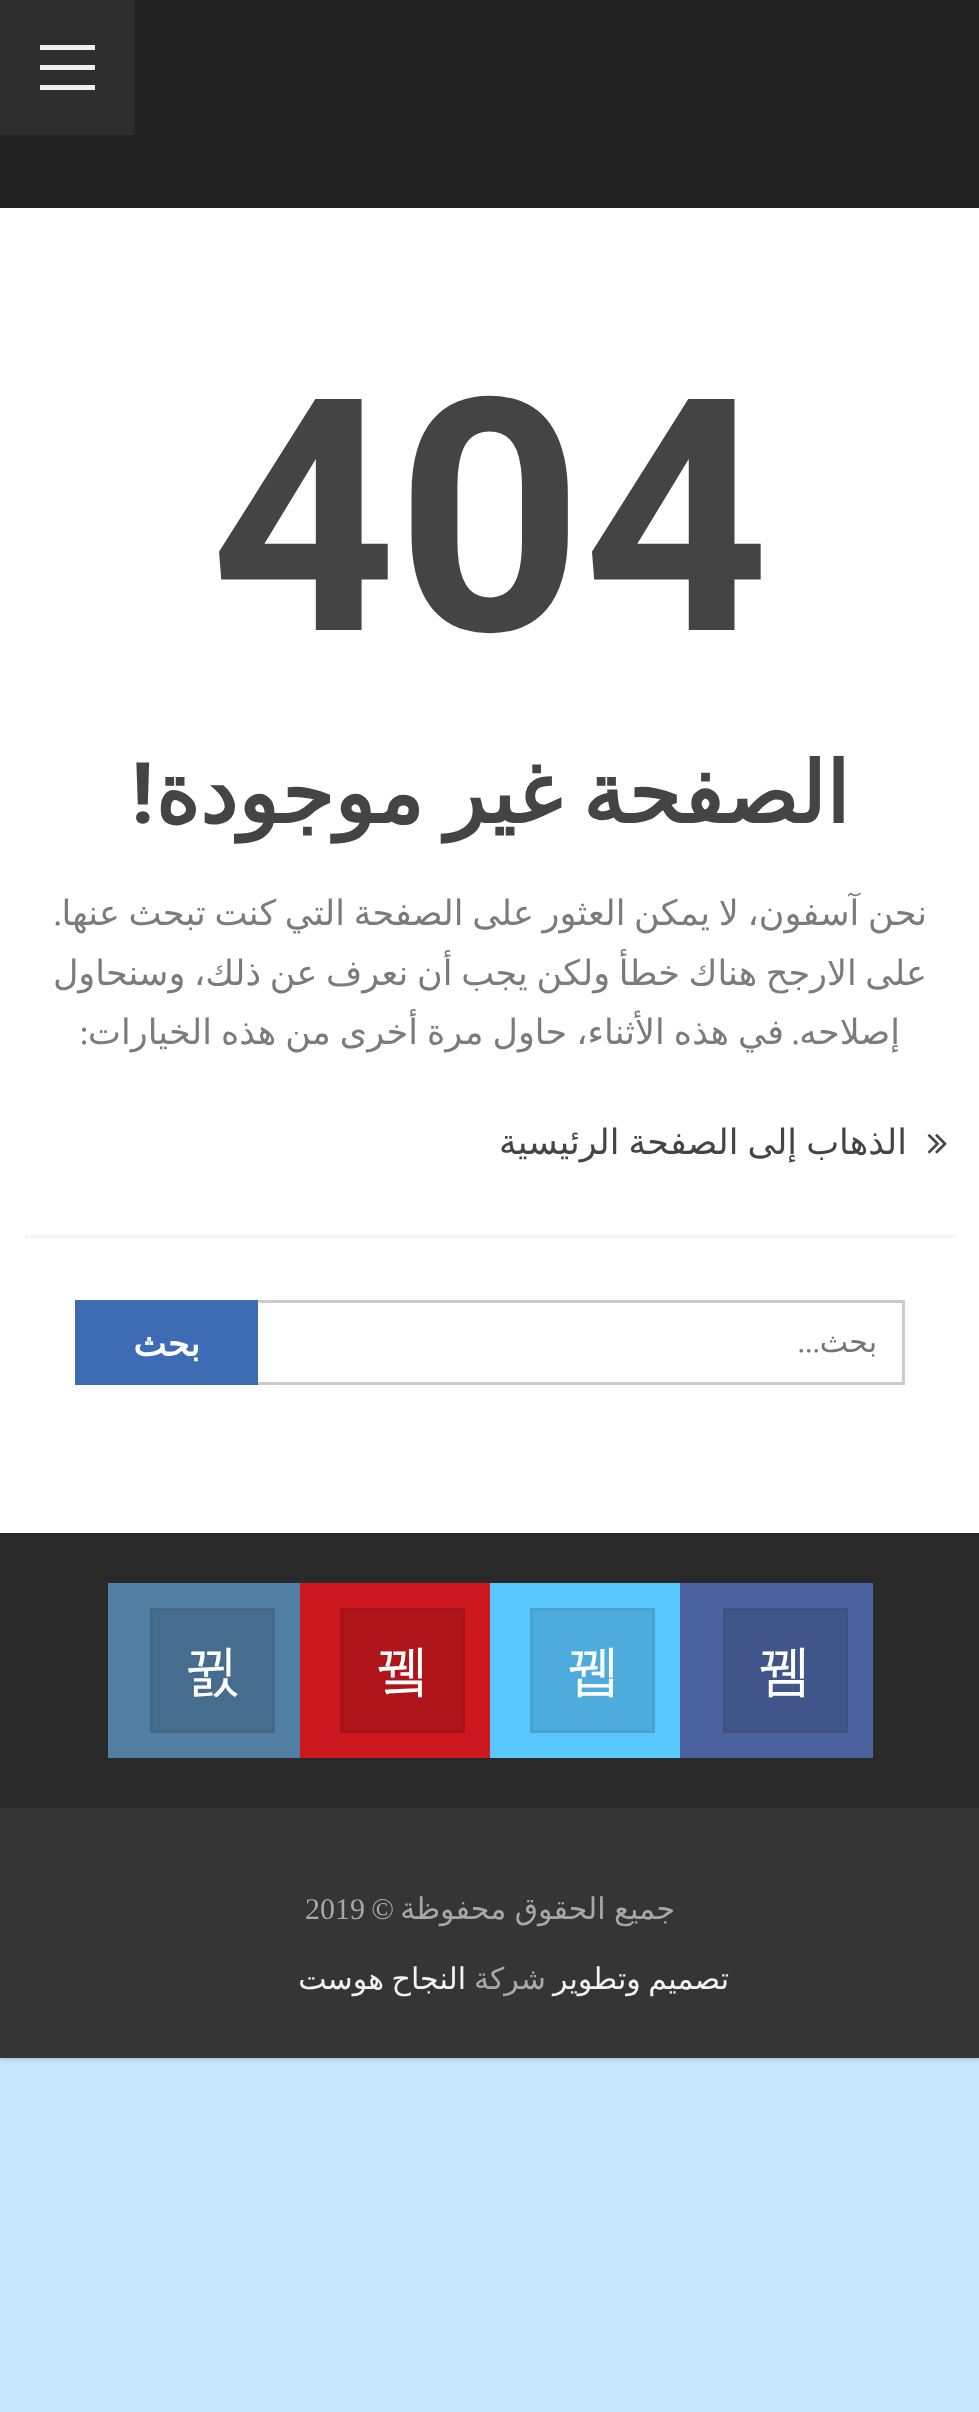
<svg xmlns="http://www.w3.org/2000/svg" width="979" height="2412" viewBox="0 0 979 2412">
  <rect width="100%" height="100%" fill="rgb(199,230,252)"/>
  <rect x="0" y="0" width="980" height="2058" fill="rgba(0,0,0,0.27)" filter="blur(2.5px)"/>
  <rect x="0" y="208" width="979" height="1325" fill="rgb(255,255,255)"/>
  <rect x="0" y="0" width="979" height="208" fill="rgb(34,34,34)"/>
  <rect x="0" y="0" width="133" height="135" fill="rgb(45,45,45)"/>
  <rect x="133" y="0" width="2" height="135" fill="rgb(42,42,42)"/>
  <rect x="40" y="65" width="55" height="5" fill="rgb(236,240,241)"/>
  <rect x="40" y="45" width="55" height="5" fill="rgb(236,240,241)"/>
  <rect x="40" y="85" width="55" height="5" fill="rgb(236,240,241)"/>
  <text x="210" y="630" font-family="Roboto" font-size="325" font-weight="bold" fill="rgb(68,68,68)">404</text>
  <text x="849" y="823" word-spacing="-6" font-family="DejaVu Sans" font-size="85" font-weight="bold" direction="rtl" fill="rgb(68,68,68)">الصفحة غير موجودة</text>
  <text x="154" y="823" font-family="Roboto" font-size="85" font-weight="bold" direction="rtl" fill="rgb(68,68,68)">!</text>
  <text x="927" y="925" word-spacing="-2.4" font-family="DejaVu Sans" font-size="35" direction="rtl" fill="rgb(123,123,123)">نحن آسفون، لا يمكن العثور على الصفحة التي كنت تبحث عنها</text>
  <text x="62" y="925" font-family="Liberation Serif" font-size="35" direction="rtl" fill="rgb(123,123,123)">.</text>
  <g font-family="DejaVu Sans" font-size="35" direction="rtl" fill="rgb(123,123,123)">
    <text x="927" y="985" word-spacing="-2.4">على الارجح هناك خطأ ولكن يجب أن نعرف عن ذلك، وسنحاول</text>
    <text x="900" y="1044">إصلاحه</text>
  </g>
  <text x="800" y="1044" font-family="Liberation Serif" font-size="35" direction="rtl" fill="rgb(123,123,123)">.</text>
  <text x="784" y="1044" word-spacing="-2" font-family="DejaVu Sans" font-size="35" direction="rtl" fill="rgb(123,123,123)">في هذه الأثناء، حاول مرة أخرى من هذه الخيارات</text>
  <text x="89" y="1044" font-family="Liberation Serif" font-size="35" direction="rtl" fill="rgb(123,123,123)">:</text>
  <image x="927" y="1134" width="20" height="20" href="pic1.png"/>
  <text x="907" y="1154" word-spacing="-2" font-family="DejaVu Sans" font-size="35" direction="rtl" fill="rgb(68,68,68)">الذهاب إلى الصفحة الرئيسية</text>
  <rect x="25" y="1235" width="930" height="3" fill="rgb(244,244,244)"/>
  <rect x="76.5" y="1301.5" width="827" height="82" fill="none" stroke="rgb(203,203,203)" stroke-width="3"/>
  <text x="877" y="1352" font-family="DejaVu Sans" font-size="30" direction="rtl" fill="rgb(117,117,117)">بحث</text>
  <text x="820" y="1352" font-family="Liberation Serif" font-size="30" direction="rtl" fill="rgb(117,117,117)">...</text>
  <rect x="75" y="1300" width="183" height="85" fill="rgb(61,108,181)"/>
  <text x="200" y="1356" font-family="DejaVu Sans" font-size="35" font-weight="bold" direction="rtl" fill="rgb(255,255,255)">بحث</text>
  <rect x="0" y="1533" width="979" height="275" fill="rgb(41,41,41)"/>
  <rect x="680" y="1583" width="193" height="175" fill="rgb(74,99,159)"/>
  <rect x="724.5" y="1609.5" width="122" height="122" fill="rgb(64,85,137)" stroke="rgb(61,81,130)" stroke-width="3"/>
  <text x="757" y="1689" font-family="WenQuanYi Zen Hei" font-size="55" font-weight="500" fill="rgb(255,255,255)">뀀</text>
  <rect x="490" y="1583" width="190" height="175" fill="rgb(89,200,255)"/>
  <rect x="531.5" y="1609.5" width="122" height="122" fill="rgb(77,172,219)" stroke="rgb(73,163,208)" stroke-width="3"/>
  <text x="566" y="1689" font-family="WenQuanYi Zen Hei" font-size="55" font-weight="500" fill="rgb(255,255,255)">뀁</text>
  <rect x="300" y="1583" width="190" height="175" fill="rgb(204,24,30)"/>
  <rect x="341.5" y="1609.5" width="122" height="122" fill="rgb(175,21,26)" stroke="rgb(166,20,25)" stroke-width="3"/>
  <text x="375" y="1689" font-family="WenQuanYi Zen Hei" font-size="55" font-weight="500" fill="rgb(255,255,255)">뀈</text>
  <rect x="108" y="1583" width="192" height="175" fill="rgb(81,127,164)"/>
  <rect x="151.5" y="1609.5" width="122" height="122" fill="rgb(70,109,141)" stroke="rgb(67,104,134)" stroke-width="3"/>
  <text x="184" y="1689" font-family="WenQuanYi Zen Hei" font-size="55" font-weight="500" fill="rgb(255,255,255)">뀘</text>
  <rect x="0" y="1808" width="979" height="250" fill="rgb(53,53,53)"/>
  <text x="675" y="1919" word-spacing="-1" font-family="DejaVu Sans" font-size="30" direction="rtl" fill="rgb(168,168,168)">جميع الحقوق محفوظة</text>
  <text x="394" y="1919" font-family="Liberation Serif" font-size="30" direction="rtl" fill="rgb(168,168,168)">©</text>
  <text x="305" y="1919" font-family="Liberation Serif" font-size="30" fill="rgb(168,168,168)">2019</text>
  <text x="729" y="1989" word-spacing="-2" font-family="DejaVu Sans" font-size="30" direction="rtl" fill="rgb(243,243,243)">تصميم وتطوير</text>
  <text x="546" y="1989" font-family="DejaVu Sans" font-size="30" direction="rtl" fill="rgb(168,168,168)">شركة</text>
  <text x="466" y="1989" word-spacing="-2" font-family="DejaVu Sans" font-size="30" direction="rtl" fill="rgb(243,243,243)">النجاح هوست</text>
</svg>
